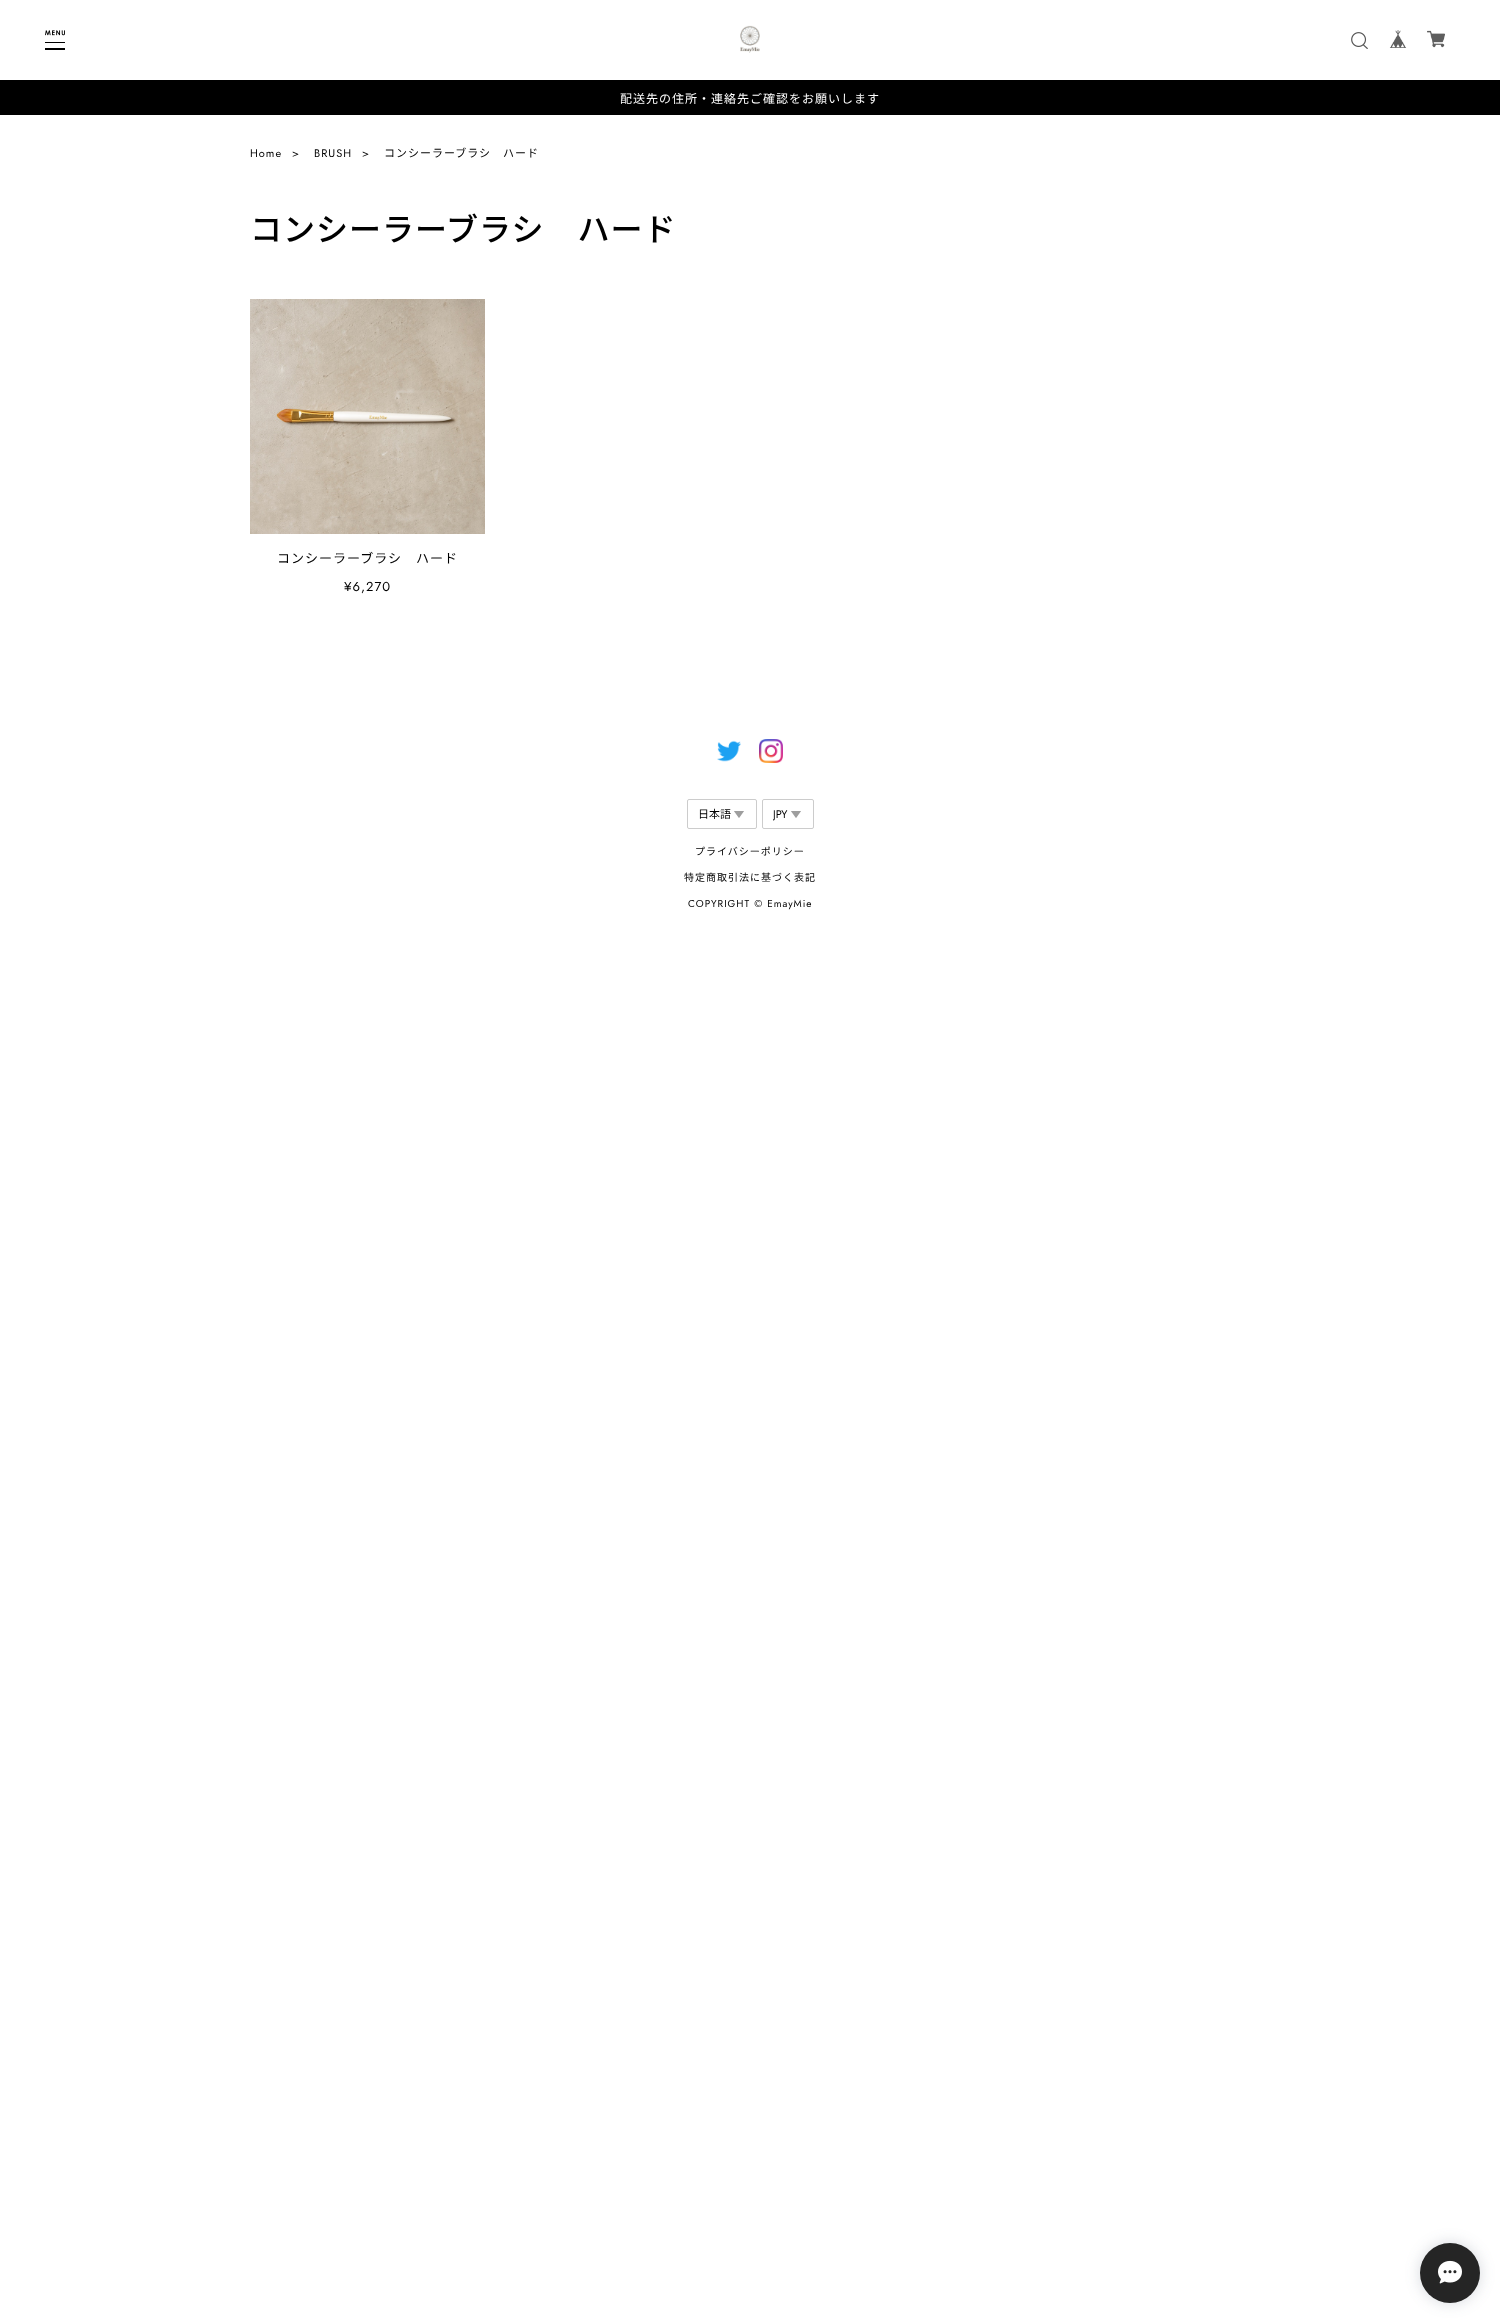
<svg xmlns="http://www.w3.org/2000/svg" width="1500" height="2323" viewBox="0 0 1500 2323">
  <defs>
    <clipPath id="clip1"><rect x="773" y="805" width="15" height="18"/></clipPath>
  </defs>
  <rect width="100%" height="100%" fill="rgb(255,255,255)"/>
  <image x="45" y="30" width="20" height="20" href="pic1.png"/>
  <image x="740" y="25" width="20" height="28" href="pic2.png"/>
  <image x="1351" y="32" width="17" height="17" href="pic3.png"/>
  <image x="1389" y="30" width="18" height="18" href="pic4.png"/>
  <image x="1427" y="30" width="18" height="18" href="pic5.png"/>
  <rect x="0" y="80" width="1500" height="35" fill="rgb(0,0,0)"/>
  <text x="620" y="103" font-family="Noto Sans JP" font-size="12" letter-spacing="1" fill="rgb(255,255,255)">配送先の住所・連絡先ご確認をお願いします</text>
  <g font-family="Jost" font-size="11" letter-spacing="1" fill="rgb(0,0,0)">
    <text x="250" y="157">Home</text>
    <text x="292" y="157">&gt;</text>
    <text x="314" y="157">BRUSH</text>
    <text x="362" y="157">&gt;</text>
  </g>
  <text x="384" y="157" font-family="Noto Sans JP" font-size="11" letter-spacing="1" fill="rgb(0,0,0)">コンシーラーブラシ　ハード</text>
  <text x="250" y="241" font-family="Noto Sans JP" font-size="32" font-weight="500" letter-spacing="1" fill="rgb(0,0,0)">コンシーラーブラシ　ハード</text>
  <image x="250" y="299" width="235" height="235" href="pic6.png"/>
  <text x="277" y="563" font-family="Noto Sans JP" font-size="13" letter-spacing="1" fill="rgb(0,0,0)">コンシーラーブラシ　ハード</text>
  <text x="344" y="591" font-family="Jost" font-size="13" letter-spacing="1" fill="rgb(0,0,0)">¥6,270</text>
  <image x="717" y="740" width="24" height="22" href="pic7.png"/>
  <image x="759" y="739" width="24" height="24" href="pic8.png"/>
  <rect x="687.5" y="799.5" width="69" height="29" rx="1.5" fill="none" stroke="rgb(204,204,204)"/>
  <text x="698" y="818" font-family="Noto Sans JP" font-size="11" fill="rgb(0,0,0)">日本語</text>
  <image x="734" y="811" width="10" height="7" href="pic9.png"/>
  <rect x="762.5" y="799.5" width="51" height="29" rx="1.5" fill="none" stroke="rgb(204,204,204)"/>
  <g clip-path="url(#clip1)">
    <text x="773" y="818" font-family="Jost" font-size="11" fill="rgb(0,0,0)">JPY</text>
  </g>
  <image x="791" y="811" width="10" height="7" href="pic9.png"/>
  <g font-family="Noto Sans JP" font-size="10" letter-spacing="1" fill="rgb(0,0,0)">
    <text x="695" y="855">プライバシーポリシー</text>
    <text x="684" y="881">特定商取引法に基づく表記</text>
  </g>
  <text x="688" y="907" font-family="Jost" font-size="10" letter-spacing="1" fill="rgb(0,0,0)">COPYRIGHT © EmayMie</text>
  <rect x="1420" y="2243" width="60" height="60" rx="30" fill="rgba(51,66,88,0.2)" filter="blur(7.5px)"/>
  <circle cx="1450" cy="2273" r="30" fill="rgb(37,37,37)"/>
  <image x="1438" y="2260" width="24" height="24" href="pic10.png"/>
</svg>
